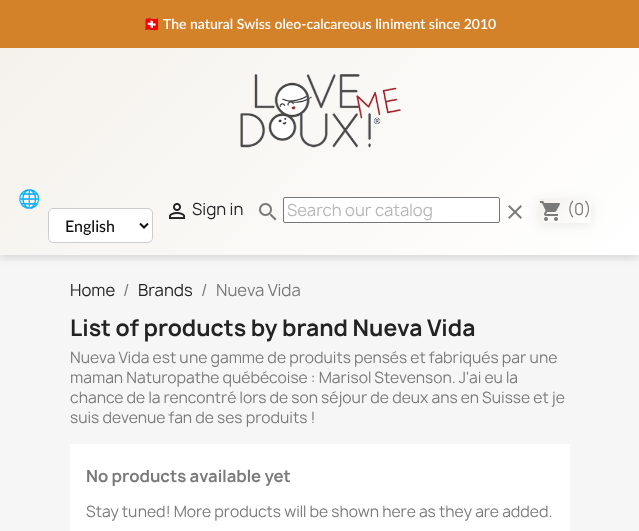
<svg xmlns="http://www.w3.org/2000/svg" width="639" height="531" viewBox="0 0 639 531">
  <defs>
    <linearGradient id="g1" gradientUnits="userSpaceOnUse" x1="96" y1="-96" x2="543" y2="351"><stop offset="0" stop-color="rgb(244,241,235)"/><stop offset="1" stop-color="rgb(255,255,255)"/></linearGradient>
    <clipPath id="clip1"><rect x="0" y="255" width="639" height="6"/></clipPath>
    <linearGradient id="g2" gradientUnits="userSpaceOnUse" x1="546" y1="192" x2="584" y2="230"><stop offset="0" stop-color="rgb(244,241,235)"/><stop offset="1" stop-color="rgb(255,255,255)"/></linearGradient>
  </defs>
  <rect width="100%" height="100%" fill="rgb(246,246,246)"/>
  <rect x="0" y="2" width="639" height="255" fill="rgba(0,0,0,0.08)" filter="blur(6px)"/>
  <rect x="0" y="48" width="639" height="207" fill="url(#g1)"/>
  <g clip-path="url(#clip1)">
    <rect x="0" y="2" width="639" height="255" fill="rgba(0,0,0,0.08)" filter="blur(6px)"/>
  </g>
  <rect x="0" y="0" width="639" height="48" fill="rgb(212,130,42)"/>
  <text x="143" y="29" font-family="Noto Color Emoji" font-size="14" font-weight="bold" fill="rgb(255,255,255)">🇨🇭</text>
  <text x="163" y="29" font-family="Lato" font-size="14" font-weight="600" fill="rgb(255,255,255)">The natural Swiss oleo-calcareous liniment since 2010</text>
  <image x="240" y="74" width="161" height="74" href="pic1.png"/>
  <text x="18" y="205" font-family="Noto Color Emoji" font-size="18" fill="rgb(17,17,17)">🌐</text>
  <rect x="48.5" y="208.5" width="104" height="34" rx="4.5" fill="rgb(255,255,255)" stroke="rgb(204,204,204)"/>
  <path d="M140 223.5L144 227.5L148 223.5" fill="none" stroke="rgb(17,17,17)" stroke-width="2"/>
  <text x="65" y="232" font-family="Lato" font-size="16" font-weight="500" fill="rgb(17,17,17)">English</text>
  <image x="169" y="203" width="16" height="16" href="pic2.png"/>
  <text x="192" y="215" font-family="Manrope" font-size="16" fill="rgb(35,35,35)">Sign in</text>
  <image x="259" y="203" width="18" height="18" href="pic3.png"/>
  <rect x="283.5" y="197.5" width="216" height="25" rx="1.5" fill="rgb(255,255,255)" stroke="rgb(118,118,118)"/>
  <text x="287" y="216" font-family="Manrope" font-size="16" fill="rgb(183,183,183)">Search our catalog</text>
  <image x="508" y="205" width="14" height="14" href="pic4.png"/>
  <rect x="539" y="201" width="52" height="24" fill="rgba(0,0,0,0.08)" filter="blur(6px)"/>
  <rect x="539" y="199" width="52" height="24" fill="url(#g2)"/>
  <image x="540" y="201" width="20" height="20" href="pic5.png"/>
  <text x="567" y="215" font-family="Manrope" font-size="16" fill="rgb(122,122,122)">(0)</text>
  <text x="70" y="296" font-family="Manrope" font-size="16" fill="rgb(35,35,35)">Home</text>
  <text x="123" y="296" font-family="Manrope" font-size="16" fill="rgb(122,122,122)">/</text>
  <text x="138" y="296" font-family="Manrope" font-size="16" fill="rgb(35,35,35)">Brands</text>
  <g font-family="Manrope" font-size="16" fill="rgb(122,122,122)">
    <text x="201" y="296">/</text>
    <text x="216" y="296">Nueva Vida</text>
  </g>
  <text x="70" y="336" font-family="Manrope" font-size="22" font-weight="bold" fill="rgb(35,35,35)">List of products by brand Nueva Vida</text>
  <g font-family="Manrope" font-size="15" fill="rgb(122,122,122)">
    <text>
      <tspan x="70" y="363">Nueva Vida est une gamme de produits pensés et fabriqués par une</tspan>
      <tspan x="70" y="383">maman Naturopathe québécoise : Marisol Stevenson. J'ai eu la</tspan>
      <tspan x="70" y="403">chance de la rencontré lors de son séjour de deux ans en Suisse et je</tspan>
      <tspan x="70" y="423">suis devenue fan de ses produits !</tspan>
    </text>
  </g>
  <rect x="70" y="444" width="500" height="87" fill="rgb(255,255,255)"/>
  <text x="86" y="482" font-family="Manrope" font-size="16" font-weight="bold" fill="rgb(122,122,122)">No products available yet</text>
  <text x="86" y="517" font-family="Manrope" font-size="15" fill="rgb(122,122,122)">Stay tuned! More products will be shown here as they are added.</text>
</svg>
